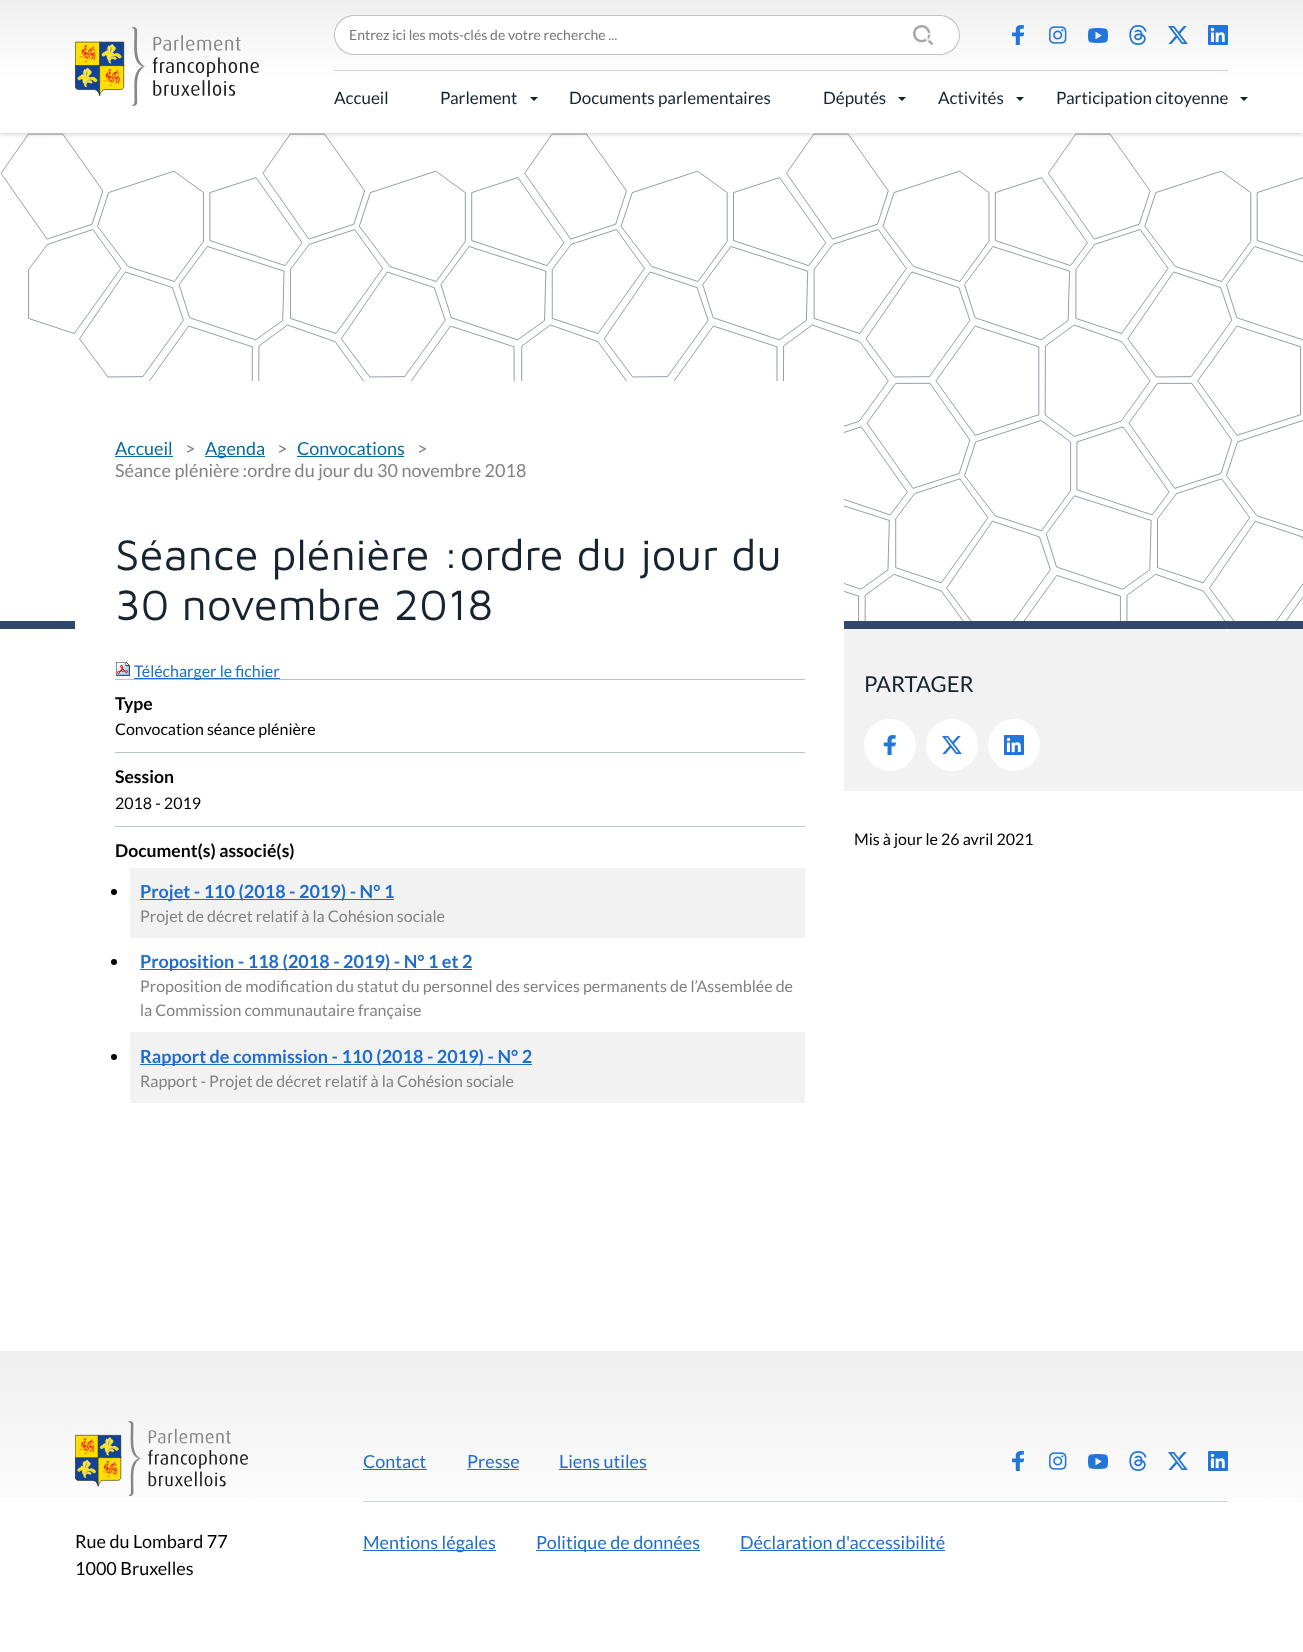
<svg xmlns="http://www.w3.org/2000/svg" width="1303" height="1652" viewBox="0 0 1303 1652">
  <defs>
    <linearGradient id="g1" gradientUnits="userSpaceOnUse" x1="652" y1="133" x2="652" y2="0"><stop offset="0.4" stop-color="rgb(255,255,255)"/><stop offset="1" stop-color="rgb(239,239,239)"/></linearGradient>
    <linearGradient id="g2" gradientUnits="userSpaceOnUse" x1="652" y1="1652" x2="652" y2="1351"><stop offset="0.4" stop-color="rgb(255,255,255)"/><stop offset="1" stop-color="rgb(239,239,239)"/></linearGradient>
  </defs>
  <rect width="100%" height="100%" fill="rgb(255,255,255)"/>
  <image x="0" y="133" width="1303" height="488" href="pic9.png"/>
  <rect x="0" y="1" width="1303" height="133" fill="rgba(0,0,0,0.2)" filter="blur(2.5px)"/>
  <rect x="0" y="0" width="1303" height="133" fill="url(#g1)"/>
  <image x="75" y="27" width="184" height="79" href="pic1.png"/>
  <rect x="334" y="70" width="894" height="1" fill="rgb(205,215,216)"/>
  <path d="M354 15H886V55H354C343 55 334 46 334 35C334 24 343 15 354 15Z" fill="rgb(255,255,255)"/>
  <path d="M354 15H886V55H354C343 55 334 46 334 35C334 24 343 15 354 15ZM354 16H886V54H354C344 54 335 45 335 35C335 25 344 16 354 16Z" fill="rgba(136,136,136,0.5)" fill-rule="evenodd"/>
  <text x="349" y="40" font-family="Lato" font-size="14" fill="rgb(119,119,119)">Entrez ici les mots-clés de votre recherche ...</text>
  <path d="M886 15H940C951 15 960 24 960 35C960 46 951 55 940 55H886Z" fill="rgb(255,255,255)"/>
  <image x="913" y="25" width="20" height="20" href="pic2.png"/>
  <path d="M886 15H940C951 15 960 24 960 35C960 46 951 55 940 55H886ZM886 16H940C950 16 959 25 959 35C959 45 950 54 940 54H886Z" fill="rgba(136,136,136,0.5)" fill-rule="evenodd"/>
  <text x="925" y="40" font-family="Lato" font-size="14" font-weight="bold" fill="rgb(249,249,249)">r</text>
  <image x="1012" y="25" width="12" height="20" href="pic3.png"/>
  <image x="1049" y="26" width="18" height="18" href="pic4.png"/>
  <image x="1088" y="28" width="20" height="15" href="pic5.png"/>
  <image x="1129" y="25" width="18" height="20" href="pic6.png"/>
  <image x="1168" y="26" width="20" height="18" href="pic7.png"/>
  <image x="1208" y="25" width="20" height="20" href="pic8.png"/>
  <g font-family="Lato" font-size="17" fill="rgb(22,35,49)">
    <text x="334" y="104">Accueil</text>
    <text x="440" y="104">Parlement</text>
  </g>
  <path d="M530 97H538L534 101Z" fill="rgb(22,35,49)" fill-rule="evenodd"/>
  <g font-family="Lato" font-size="17" fill="rgb(22,35,49)">
    <text x="569" y="104">Documents parlementaires</text>
    <text x="823" y="104">Députés</text>
  </g>
  <path d="M898 97H906L902 101Z" fill="rgb(22,35,49)" fill-rule="evenodd"/>
  <text x="938" y="104" font-family="Lato" font-size="17" fill="rgb(22,35,49)">Activités</text>
  <path d="M1016 97H1024L1020 101Z" fill="rgb(22,35,49)" fill-rule="evenodd"/>
  <text x="1056" y="104" font-family="Lato" font-size="17" fill="rgb(22,35,49)">Participation citoyenne</text>
  <path d="M1240 97H1248L1244 101Z" fill="rgb(22,35,49)" fill-rule="evenodd"/>
  <rect x="0" y="621" width="1303" height="8" fill="rgb(47,72,108)"/>
  <rect x="75" y="381" width="769" height="248" fill="rgb(255,255,255)"/>
  <text x="115" y="455" font-family="Lato" font-size="18" fill="rgb(8,108,163)">Accueil</text>
  <rect x="115" y="456" width="58" height="1" fill="rgb(8,108,163)"/>
  <text x="185" y="455" font-family="Lato" font-size="18" fill="rgb(130,130,130)">&gt;</text>
  <rect x="205" y="456" width="60" height="1" fill="rgb(8,108,163)"/>
  <text x="205" y="455" font-family="Lato" font-size="18" fill="rgb(8,108,163)">Agenda</text>
  <text x="277" y="455" font-family="Lato" font-size="18" fill="rgb(130,130,130)">&gt;</text>
  <text x="297" y="455" font-family="Lato" font-size="18" fill="rgb(8,108,163)">Convocations</text>
  <rect x="297" y="456" width="107" height="1" fill="rgb(8,108,163)"/>
  <g font-family="Lato" font-size="18" fill="rgb(130,130,130)">
    <text x="417" y="455">&gt;</text>
    <text x="115" y="477">Séance plénière :ordre du jour du 30 novembre 2018</text>
  </g>
  <g font-family="Maven Pro" font-size="44" fill="rgb(22,35,49)">
    <text>
      <tspan x="115" y="570">Séance plénière :ordre du jour du</tspan>
      <tspan x="115" y="620">30 novembre 2018</tspan>
    </text>
  </g>
  <image x="116" y="662" width="14" height="14" href="pic10.png"/>
  <rect x="134" y="678" width="146" height="1" fill="rgb(31,110,203)"/>
  <rect x="115" y="679" width="690" height="1" fill="rgb(184,195,197)"/>
  <text x="134" y="677" font-family="Lato" font-size="16" fill="rgb(31,110,203)">Télécharger le fichier</text>
  <text x="115" y="710" font-family="Lato" font-size="17.6" font-weight="bold" fill="rgb(0,0,0)">Type</text>
  <text x="115" y="735" font-family="Lato" font-size="16" fill="rgb(0,0,0)">Convocation séance plénière</text>
  <rect x="115" y="752" width="690" height="1" fill="rgb(184,195,197)"/>
  <text x="115" y="783" font-family="Lato" font-size="17.6" font-weight="bold" fill="rgb(0,0,0)">Session</text>
  <text x="115" y="809" font-family="Lato" font-size="16" fill="rgb(0,0,0)">2018 - 2019</text>
  <rect x="115" y="826" width="690" height="1" fill="rgb(184,195,197)"/>
  <text x="115" y="857" font-family="Lato" font-size="17.6" font-weight="bold" fill="rgb(0,0,0)">Document(s) associé(s)</text>
  <rect x="130" y="868" width="675" height="70" fill="rgb(242,242,242)"/>
  <circle cx="114" cy="892" r="3" fill="rgb(0,0,0)"/>
  <rect x="140" y="899" width="254" height="1" fill="rgb(31,110,203)"/>
  <text x="140" y="898" font-family="Lato" font-size="18" font-weight="bold" fill="rgb(31,110,203)">Projet - 110 (2018 - 2019) - N° 1</text>
  <text x="140" y="922" font-family="Lato" font-size="16" fill="rgb(130,130,130)">Projet de décret relatif à la Cohésion sociale</text>
  <rect x="130" y="1032" width="675" height="71" fill="rgb(242,242,242)"/>
  <circle cx="114" cy="962" r="3" fill="rgb(0,0,0)"/>
  <rect x="140" y="969" width="332" height="1" fill="rgb(31,110,203)"/>
  <text x="140" y="968" font-family="Lato" font-size="18" font-weight="bold" fill="rgb(31,110,203)">Proposition - 118 (2018 - 2019) - N° 1 et 2</text>
  <g font-family="Lato" font-size="16" fill="rgb(130,130,130)">
    <text>
      <tspan x="140" y="992">Proposition de modification du statut du personnel des services permanents de l’Assemblée de</tspan>
      <tspan x="140" y="1016">la Commission communautaire française</tspan>
    </text>
  </g>
  <circle cx="114" cy="1057" r="3" fill="rgb(0,0,0)"/>
  <rect x="140" y="1064" width="392" height="1" fill="rgb(31,110,203)"/>
  <text x="140" y="1063" font-family="Lato" font-size="18" font-weight="bold" fill="rgb(31,110,203)">Rapport de commission - 110 (2018 - 2019) - N° 2</text>
  <text x="140" y="1087" font-family="Lato" font-size="16" fill="rgb(130,130,130)">Rapport - Projet de décret relatif à la Cohésion sociale</text>
  <path d="M848 629H1224C1226 629 1228 631 1228 633V791H844V633C844 631 846 629 848 629Z" fill="rgb(242,242,242)"/>
  <text x="864" y="692" font-family="Lato" font-size="22" fill="rgb(22,35,49)">PARTAGER</text>
  <rect x="1228" y="629" width="75" height="162" fill="rgb(242,242,242)"/>
  <circle cx="890" cy="745" r="26" fill="rgb(255,255,255)"/>
  <image x="883" y="735" width="14" height="20" href="pic11.png"/>
  <circle cx="952" cy="745" r="26" fill="rgb(255,255,255)"/>
  <image x="942" y="735" width="20" height="20" href="pic12.png"/>
  <circle cx="1014" cy="745" r="26" fill="rgb(255,255,255)"/>
  <image x="1004" y="735" width="20" height="20" href="pic13.png"/>
  <text x="854" y="845" font-family="Lato" font-size="16" fill="rgb(0,0,0)">Mis à jour le 26 avril 2021</text>
  <rect x="0" y="1351" width="1303" height="152" fill="url(#g2)"/>
  <rect x="363" y="1501" width="865" height="1" fill="rgb(205,215,216)"/>
  <text x="363" y="1468" font-family="Lato" font-size="18" fill="rgb(31,110,203)">Contact</text>
  <rect x="363" y="1469" width="64" height="1" fill="rgb(31,110,203)"/>
  <text x="467" y="1468" font-family="Lato" font-size="18" fill="rgb(31,110,203)">Presse</text>
  <rect x="467" y="1469" width="52" height="1" fill="rgb(31,110,203)"/>
  <text x="559" y="1468" font-family="Lato" font-size="18" fill="rgb(31,110,203)">Liens utiles</text>
  <rect x="559" y="1469" width="88" height="1" fill="rgb(31,110,203)"/>
  <image x="1012" y="1451" width="12" height="20" href="pic14.png"/>
  <image x="1049" y="1452" width="18" height="18" href="pic15.png"/>
  <image x="1088" y="1454" width="20" height="15" href="pic16.png"/>
  <image x="1129" y="1451" width="18" height="20" href="pic17.png"/>
  <image x="1168" y="1452" width="20" height="18" href="pic18.png"/>
  <image x="1208" y="1451" width="20" height="20" href="pic19.png"/>
  <image x="75" y="1421" width="173" height="75" href="pic20.png"/>
  <g font-family="Lato" font-size="18" fill="rgb(0,0,0)">
    <text>
      <tspan x="75" y="1548">Rue du Lombard 77</tspan>
      <tspan x="75" y="1575">1000 Bruxelles</tspan>
    </text>
  </g>
  <rect x="363" y="1550" width="133" height="1" fill="rgb(31,110,203)"/>
  <text x="363" y="1549" font-family="Lato" font-size="18" fill="rgb(31,110,203)">Mentions légales</text>
  <rect x="536" y="1550" width="164" height="1" fill="rgb(31,110,203)"/>
  <g font-family="Lato" font-size="18" fill="rgb(31,110,203)">
    <text x="536" y="1549">Politique de données</text>
    <text x="740" y="1549">Déclaration d'accessibilité</text>
  </g>
  <rect x="740" y="1550" width="205" height="1" fill="rgb(31,110,203)"/>
</svg>
